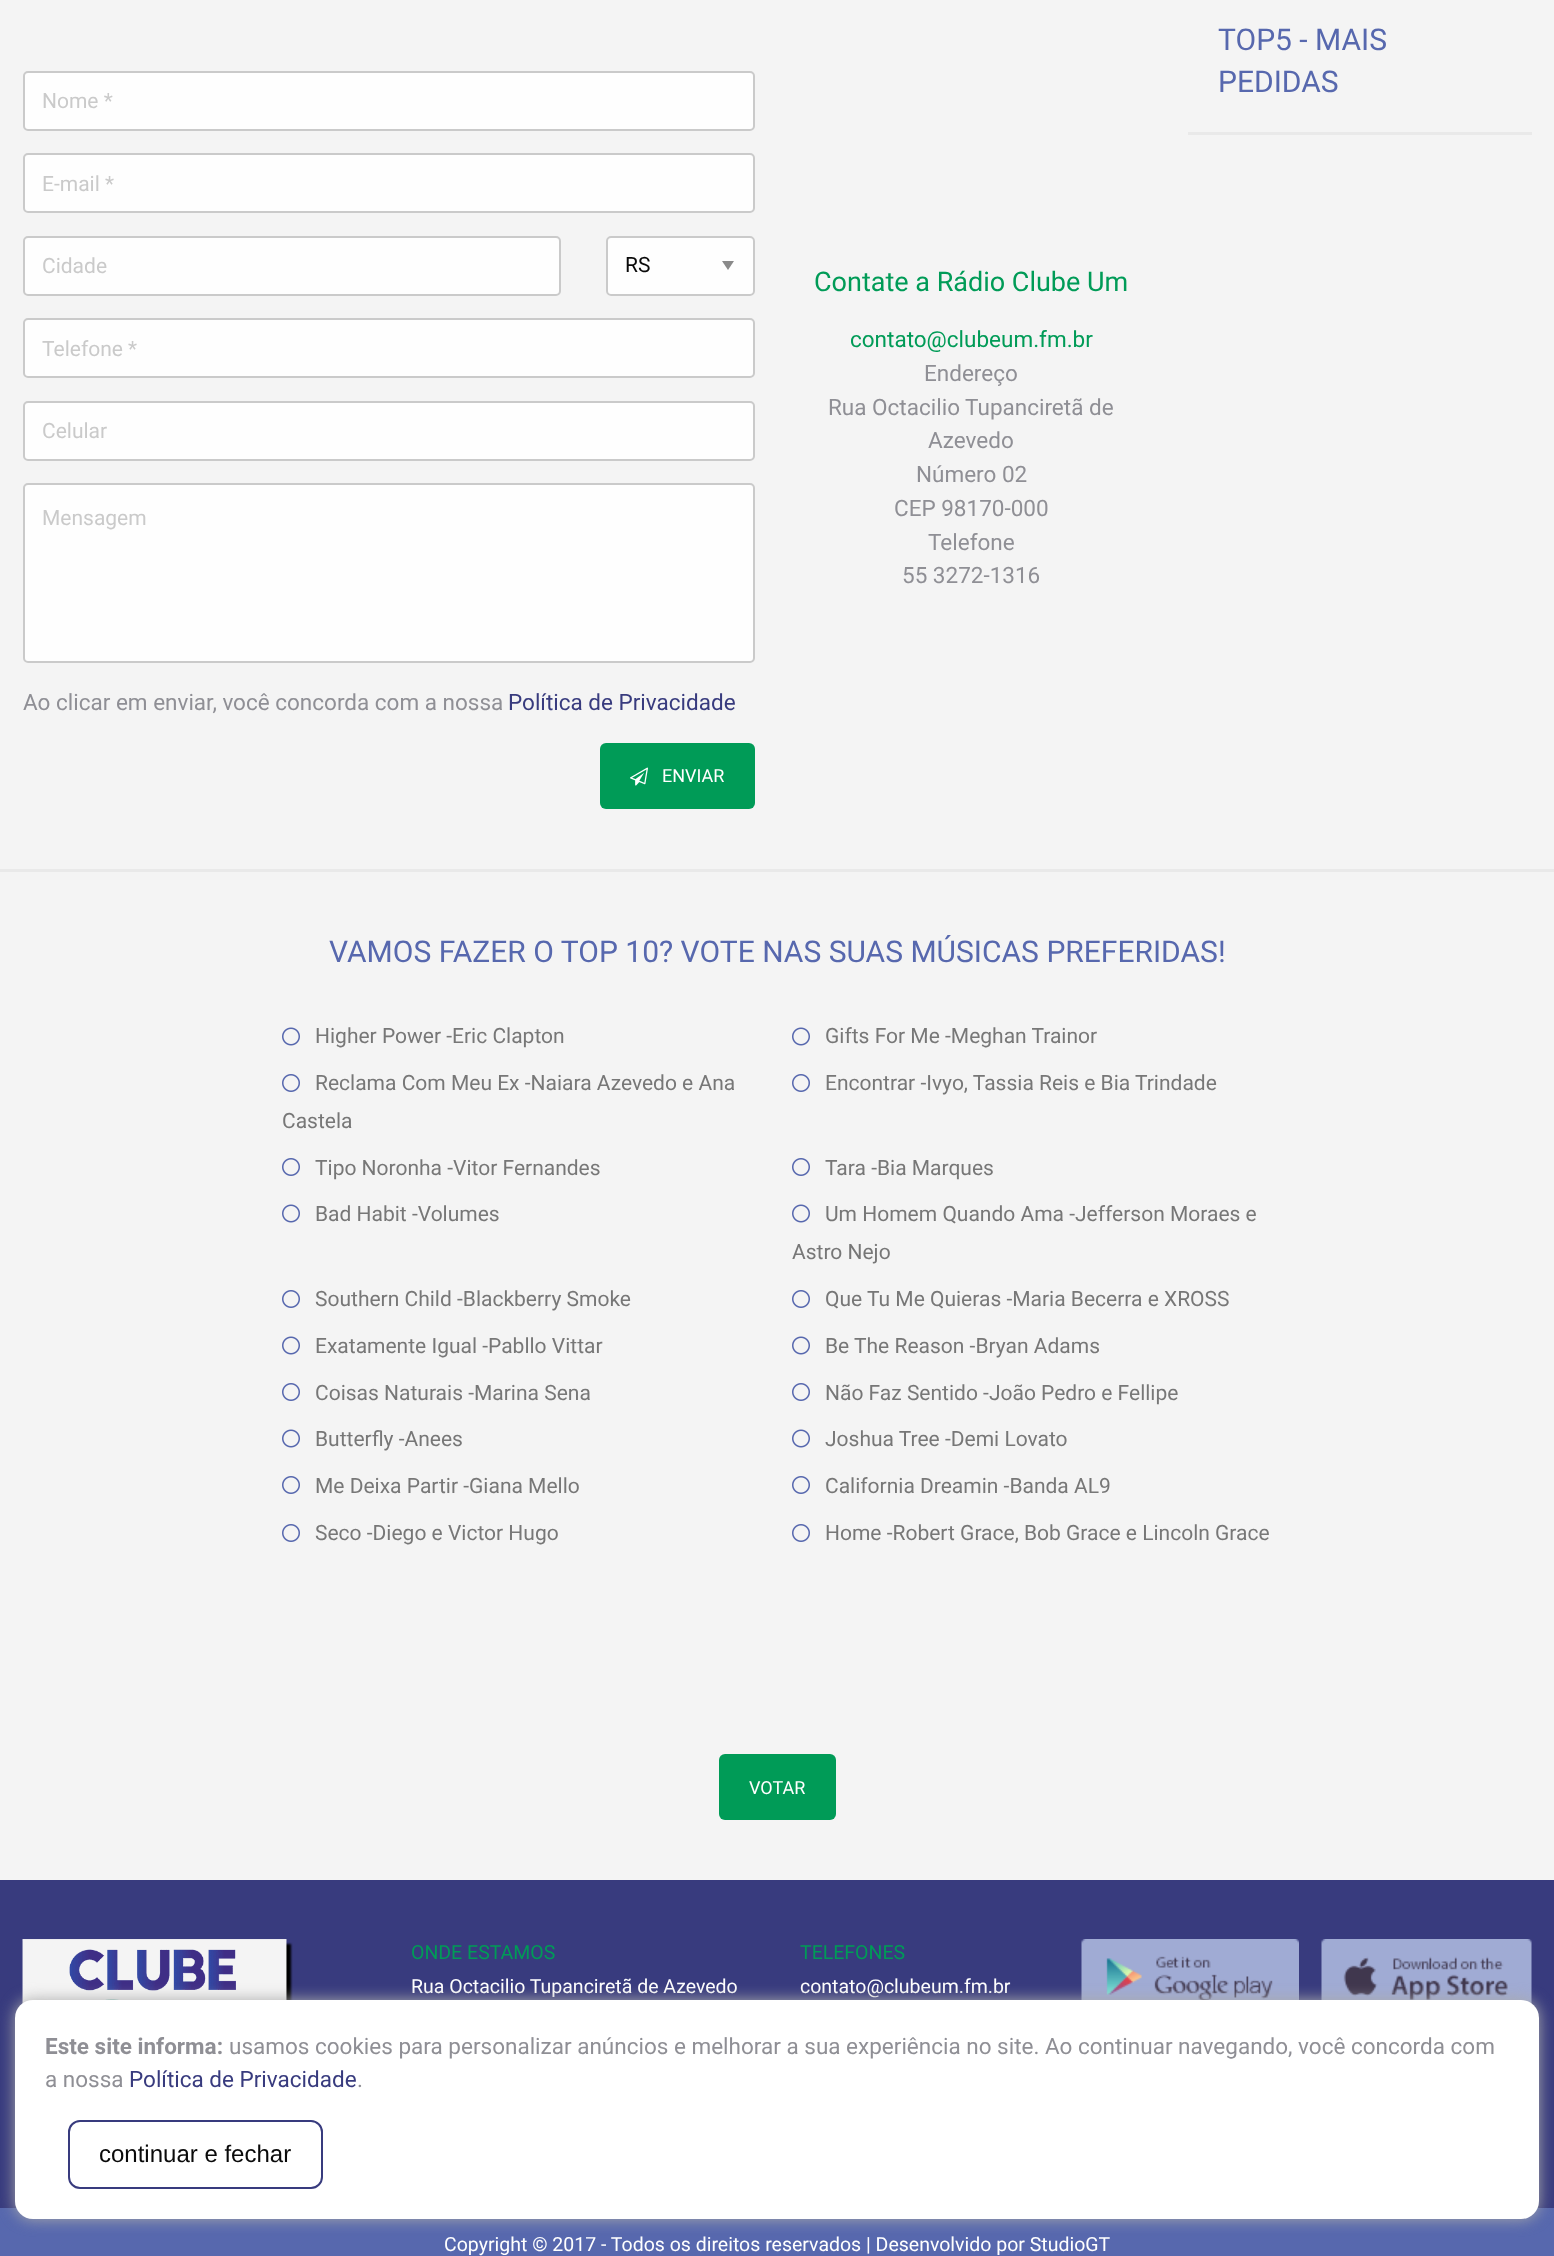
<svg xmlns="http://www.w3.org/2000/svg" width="1554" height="2256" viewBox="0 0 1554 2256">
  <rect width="100%" height="100%" fill="rgb(244,244,244)"/>
  <rect x="0" y="869" width="1554" height="3" fill="rgb(233,233,233)"/>
  <g font-family="Roboto" font-size="30" fill="rgb(87,104,174)">
    <text>
      <tspan x="1218" y="50">TOP5 - MAIS</tspan>
      <tspan x="1218" y="92">PEDIDAS</tspan>
    </text>
  </g>
  <rect x="1188" y="132" width="344" height="3" fill="rgb(233,233,233)"/>
  <rect x="24" y="72" width="730" height="58" rx="4" fill="rgb(254,254,254)" stroke="rgb(202,202,202)" stroke-width="2"/>
  <text x="42" y="108" font-family="Roboto" font-size="21" fill="rgb(202,202,202)">Nome *</text>
  <rect x="24" y="154" width="730" height="58" rx="4" fill="rgb(254,254,254)" stroke="rgb(202,202,202)" stroke-width="2"/>
  <text x="42" y="191" font-family="Roboto" font-size="21" fill="rgb(202,202,202)">E-mail *</text>
  <rect x="24" y="237" width="536" height="58" rx="4" fill="rgb(254,254,254)" stroke="rgb(202,202,202)" stroke-width="2"/>
  <text x="42" y="273" font-family="Roboto" font-size="21" fill="rgb(202,202,202)">Cidade</text>
  <rect x="606" y="236" width="149" height="60" rx="5" fill="rgb(254,254,254)"/>
  <path d="M722 261H734L728 270Z" fill="rgb(138,138,138)"/>
  <rect x="607" y="237" width="147" height="58" rx="4" fill="none" stroke="rgb(202,202,202)" stroke-width="2"/>
  <text x="625" y="272" font-family="Roboto" font-size="21" fill="rgb(10,10,10)">RS</text>
  <rect x="24" y="319" width="730" height="58" rx="4" fill="rgb(254,254,254)" stroke="rgb(202,202,202)" stroke-width="2"/>
  <text x="42" y="356" font-family="Roboto" font-size="21" fill="rgb(202,202,202)">Telefone *</text>
  <rect x="24" y="402" width="730" height="58" rx="4" fill="rgb(254,254,254)" stroke="rgb(202,202,202)" stroke-width="2"/>
  <text x="42" y="438" font-family="Roboto" font-size="21" fill="rgb(202,202,202)">Celular</text>
  <rect x="24" y="484" width="730" height="178" rx="4" fill="rgb(254,254,254)" stroke="rgb(202,202,202)" stroke-width="2"/>
  <text x="42" y="525" font-family="Roboto" font-size="21" fill="rgb(202,202,202)">Mensagem</text>
  <text x="23" y="710" font-family="Roboto" font-size="22.5" fill="rgb(143,143,149)">Ao clicar em enviar, você concorda com a nossa</text>
  <text x="508" y="710" font-family="Roboto" font-size="22.5" fill="rgb(56,59,126)">Política de Privacidade</text>
  <rect x="600" y="743" width="155" height="66" rx="6" fill="rgb(0,155,87)"/>
  <image x="630" y="767" width="18" height="19" href="pic1.png"/>
  <text x="662" y="782" font-family="Roboto" font-size="18" fill="rgb(255,255,255)">ENVIAR</text>
  <text x="814" y="291" font-family="Roboto" font-size="27" fill="rgb(0,155,87)">Contate a Rádio Clube Um</text>
  <text x="850" y="347" font-family="Roboto" font-size="22.5" fill="rgb(0,155,87)">contato@clubeum.fm.br</text>
  <g font-family="Roboto" font-size="22.5" fill="rgb(143,143,149)">
    <text x="924" y="381">Endereço</text>
    <text x="828" y="415">Rua Octacilio Tupanciretã de</text>
    <text x="928" y="448">Azevedo</text>
    <text x="916" y="482">Número 02</text>
    <text x="894" y="516">CEP 98170-000</text>
    <text x="928" y="550">Telefone</text>
    <text x="902" y="583">55 3272-1316</text>
  </g>
  <text x="329" y="962" font-family="Roboto" font-size="30" fill="rgb(87,104,174)">VAMOS FAZER O TOP 10? VOTE NAS SUAS MÚSICAS PREFERIDAS!</text>
  <image x="282" y="1027" width="18" height="19" href="pic2.png"/>
  <text x="315" y="1043" font-family="Roboto" font-size="21" fill="rgb(119,119,119)">Higher Power -Eric Clapton</text>
  <image x="792" y="1027" width="18" height="19" href="pic2.png"/>
  <text x="825" y="1043" font-family="Roboto" font-size="21" fill="rgb(119,119,119)">Gifts For Me -Meghan Trainor</text>
  <image x="282" y="1074" width="18" height="18" href="pic3.png"/>
  <g font-family="Roboto" font-size="21" fill="rgb(119,119,119)">
    <text x="315" y="1090">Reclama Com Meu Ex -Naiara Azevedo e Ana</text>
    <text x="282" y="1128">Castela</text>
  </g>
  <image x="792" y="1074" width="18" height="18" href="pic3.png"/>
  <text x="825" y="1090" font-family="Roboto" font-size="21" fill="rgb(119,119,119)">Encontrar -Ivyo, Tassia Reis e Bia Trindade</text>
  <image x="282" y="1158" width="18" height="18" href="pic3.png"/>
  <text x="315" y="1175" font-family="Roboto" font-size="21" fill="rgb(119,119,119)">Tipo Noronha -Vitor Fernandes</text>
  <image x="792" y="1158" width="18" height="18" href="pic3.png"/>
  <text x="825" y="1175" font-family="Roboto" font-size="21" fill="rgb(119,119,119)">Tara -Bia Marques</text>
  <image x="282" y="1204" width="18" height="19" href="pic2.png"/>
  <text x="315" y="1221" font-family="Roboto" font-size="21" fill="rgb(119,119,119)">Bad Habit -Volumes</text>
  <image x="792" y="1204" width="18" height="19" href="pic2.png"/>
  <g font-family="Roboto" font-size="21" fill="rgb(119,119,119)">
    <text x="825" y="1221">Um Homem Quando Ama -Jefferson Moraes e</text>
    <text x="792" y="1259">Astro Nejo</text>
  </g>
  <image x="282" y="1290" width="18" height="18" href="pic3.png"/>
  <text x="315" y="1306" font-family="Roboto" font-size="21" fill="rgb(119,119,119)">Southern Child -Blackberry Smoke</text>
  <image x="792" y="1290" width="18" height="18" href="pic3.png"/>
  <text x="825" y="1306" font-family="Roboto" font-size="21" fill="rgb(119,119,119)">Que Tu Me Quieras -Maria Becerra e XROSS</text>
  <image x="282" y="1336" width="18" height="19" href="pic2.png"/>
  <text x="315" y="1353" font-family="Roboto" font-size="21" fill="rgb(119,119,119)">Exatamente Igual -Pabllo Vittar</text>
  <image x="792" y="1336" width="18" height="19" href="pic2.png"/>
  <text x="825" y="1353" font-family="Roboto" font-size="21" fill="rgb(119,119,119)">Be The Reason -Bryan Adams</text>
  <image x="282" y="1383" width="18" height="18" href="pic3.png"/>
  <text x="315" y="1400" font-family="Roboto" font-size="21" fill="rgb(119,119,119)">Coisas Naturais -Marina Sena</text>
  <image x="792" y="1383" width="18" height="18" href="pic3.png"/>
  <text x="825" y="1400" font-family="Roboto" font-size="21" fill="rgb(119,119,119)">Não Faz Sentido -João Pedro e Fellipe</text>
  <image x="282" y="1429" width="18" height="19" href="pic2.png"/>
  <text x="315" y="1446" font-family="Roboto" font-size="21" fill="rgb(119,119,119)">Butterfly -Anees</text>
  <image x="792" y="1429" width="18" height="19" href="pic2.png"/>
  <text x="825" y="1446" font-family="Roboto" font-size="21" fill="rgb(119,119,119)">Joshua Tree -Demi Lovato</text>
  <image x="282" y="1476" width="18" height="18" href="pic3.png"/>
  <text x="315" y="1493" font-family="Roboto" font-size="21" fill="rgb(119,119,119)">Me Deixa Partir -Giana Mello</text>
  <image x="792" y="1476" width="18" height="18" href="pic3.png"/>
  <text x="825" y="1493" font-family="Roboto" font-size="21" fill="rgb(119,119,119)">California Dreamin -Banda AL9</text>
  <image x="282" y="1524" width="18" height="18" href="pic3.png"/>
  <text x="315" y="1540" font-family="Roboto" font-size="21" fill="rgb(119,119,119)">Seco -Diego e Victor Hugo</text>
  <image x="792" y="1524" width="18" height="18" href="pic3.png"/>
  <text x="825" y="1540" font-family="Roboto" font-size="21" fill="rgb(119,119,119)">Home -Robert Grace, Bob Grace e Lincoln Grace</text>
  <rect x="719" y="1754" width="117" height="66" rx="6" fill="rgb(0,155,87)"/>
  <text x="749" y="1794" font-family="Roboto" font-size="18" fill="rgb(255,255,255)">VOTAR</text>
  <rect x="0" y="1880" width="1554" height="328" fill="rgb(56,59,126)"/>
  <rect x="27" y="1944" width="264" height="140" fill="rgb(0,0,0)" filter="blur(1px)"/>
  <image x="22" y="1939" width="265" height="65" href="pic4.png"/>
  <text x="411" y="1959" font-family="Roboto" font-size="19.5" fill="rgb(0,155,87)">ONDE ESTAMOS</text>
  <text x="411" y="1993" font-family="Roboto" font-size="19.5" fill="rgb(255,255,255)">Rua Octacilio Tupanciretã de Azevedo</text>
  <text x="800" y="1959" font-family="Roboto" font-size="19.5" fill="rgb(0,155,87)">TELEFONES</text>
  <text x="800" y="1993" font-family="Roboto" font-size="19.5" fill="rgb(255,255,255)">contato@clubeum.fm.br</text>
  <image x="1081" y="1939" width="218" height="61" href="pic5.png"/>
  <image x="1321" y="1939" width="211" height="65" href="pic6.png"/>
  <rect x="0" y="2208" width="1554" height="48" fill="rgb(87,104,174)"/>
  <text x="444" y="2251" font-family="Roboto" font-size="19.5" fill="rgb(255,255,255)">Copyright © 2017 - Todos os direitos reservados | Desenvolvido por StudioGT</text>
  <rect x="15" y="2000" width="1524" height="219" rx="18" fill="rgb(170,170,170)" filter="blur(7.5px)"/>
  <rect x="15" y="2000" width="1524" height="219" rx="18" fill="rgb(255,255,255)"/>
  <text x="45" y="2054" font-family="Roboto" font-size="22.5" font-weight="bold" fill="rgb(143,143,149)">Este site informa:</text>
  <g font-family="Roboto" font-size="22.5" fill="rgb(143,143,149)">
    <text x="229" y="2054">usamos cookies para personalizar anúncios e melhorar a sua experiência no site. Ao continuar navegando, você concorda com</text>
    <text x="45" y="2087">a nossa</text>
  </g>
  <text x="129" y="2087" font-family="Roboto" font-size="22.5" fill="rgb(56,59,126)">Política de Privacidade</text>
  <text x="357" y="2087" font-family="Roboto" font-size="22.5" fill="rgb(143,143,149)">.</text>
  <rect x="69" y="2121" width="253" height="67" rx="11" fill="none" stroke="rgb(56,59,126)" stroke-width="2"/>
  <text x="99" y="2162" font-family="Liberation Sans" font-size="24" fill="rgb(10,10,10)">continuar e fechar</text>
</svg>
